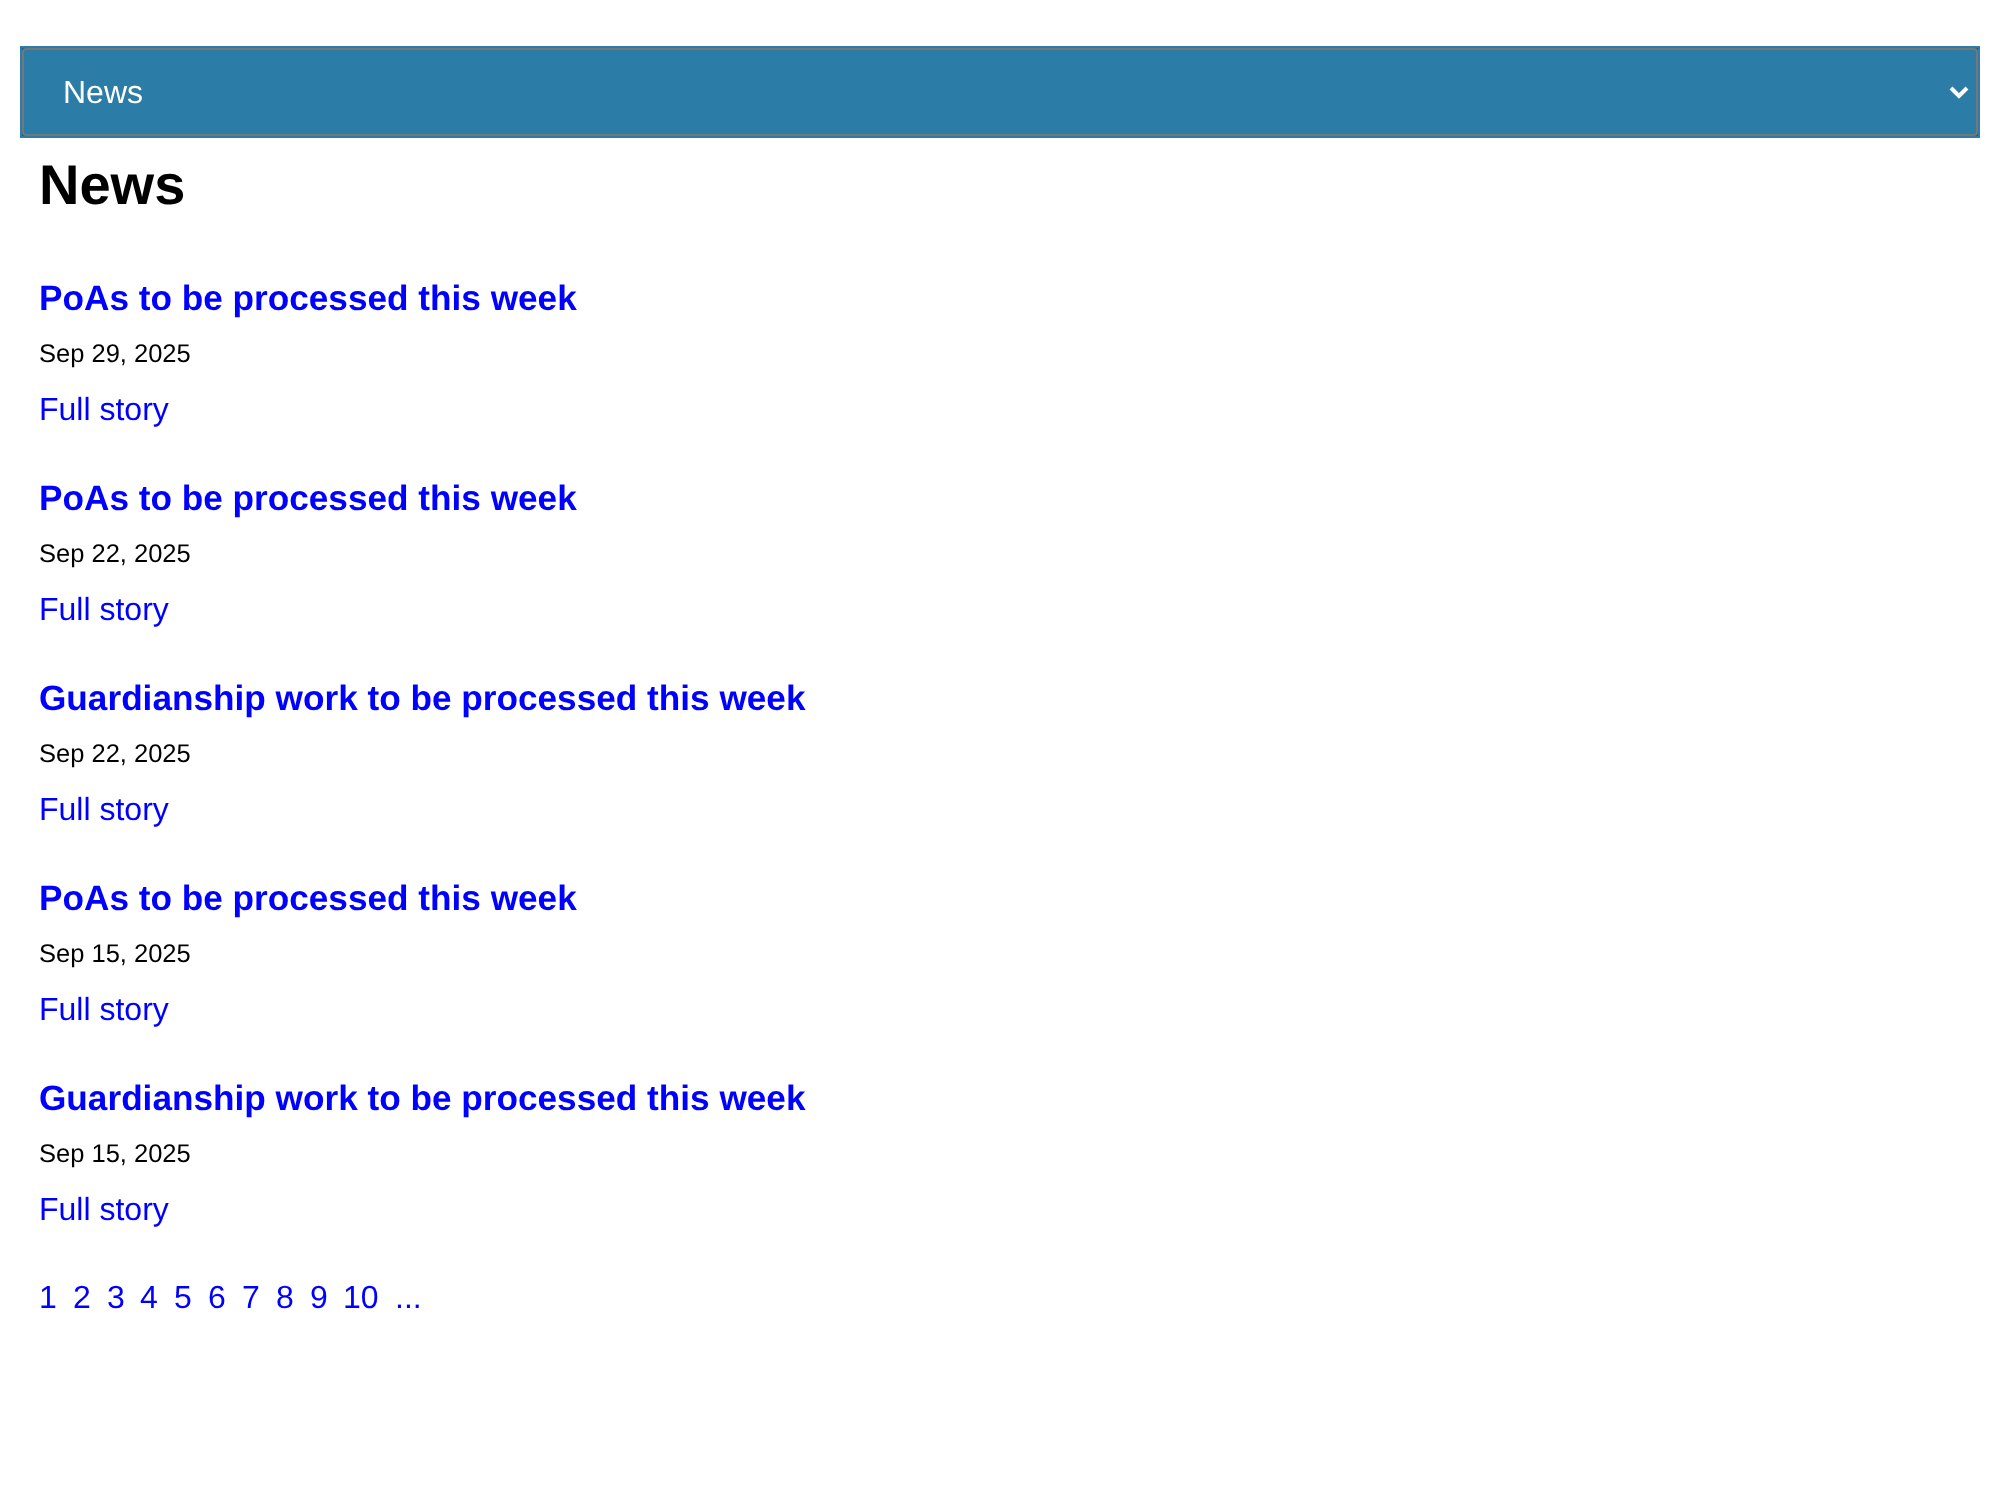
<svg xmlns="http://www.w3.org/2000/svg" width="1998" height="1492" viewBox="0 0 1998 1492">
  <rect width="100%" height="100%" fill="rgb(255,255,255)"/>
  <rect x="21" y="47" width="1958" height="90" fill="rgb(6,102,152)" stroke="rgb(43,125,167)" stroke-width="2"/>
  <rect x="23" y="49" width="1954" height="86" rx="3" fill="rgb(43,125,167)" stroke="rgb(118,118,118)" stroke-width="2"/>
  <path d="M1951 88L1959 96L1967 88" fill="none" stroke="rgb(255,255,255)" stroke-width="4"/>
  <text x="63" y="103" font-family="Liberation Sans" font-size="32" fill="rgb(255,255,255)">News</text>
  <text x="39" y="204" font-family="Liberation Sans" font-size="56" font-weight="bold" fill="rgb(0,0,0)">News</text>
  <text x="39" y="310" font-family="Liberation Sans" font-size="35.2" font-weight="bold" fill="rgb(0,0,255)">PoAs to be processed this week</text>
  <text x="39" y="362" font-family="Liberation Sans" font-size="25.5" fill="rgb(0,0,0)">Sep 29, 2025</text>
  <text x="39" y="420" font-family="Liberation Sans" font-size="32" fill="rgb(0,0,255)">Full story</text>
  <text x="39" y="510" font-family="Liberation Sans" font-size="35.2" font-weight="bold" fill="rgb(0,0,255)">PoAs to be processed this week</text>
  <text x="39" y="562" font-family="Liberation Sans" font-size="25.5" fill="rgb(0,0,0)">Sep 22, 2025</text>
  <text x="39" y="620" font-family="Liberation Sans" font-size="32" fill="rgb(0,0,255)">Full story</text>
  <text x="39" y="710" font-family="Liberation Sans" font-size="35.2" font-weight="bold" fill="rgb(0,0,255)">Guardianship work to be processed this week</text>
  <text x="39" y="762" font-family="Liberation Sans" font-size="25.5" fill="rgb(0,0,0)">Sep 22, 2025</text>
  <text x="39" y="820" font-family="Liberation Sans" font-size="32" fill="rgb(0,0,255)">Full story</text>
  <text x="39" y="910" font-family="Liberation Sans" font-size="35.2" font-weight="bold" fill="rgb(0,0,255)">PoAs to be processed this week</text>
  <text x="39" y="962" font-family="Liberation Sans" font-size="25.5" fill="rgb(0,0,0)">Sep 15, 2025</text>
  <text x="39" y="1020" font-family="Liberation Sans" font-size="32" fill="rgb(0,0,255)">Full story</text>
  <text x="39" y="1110" font-family="Liberation Sans" font-size="35.2" font-weight="bold" fill="rgb(0,0,255)">Guardianship work to be processed this week</text>
  <text x="39" y="1162" font-family="Liberation Sans" font-size="25.5" fill="rgb(0,0,0)">Sep 15, 2025</text>
  <g font-family="Liberation Sans" font-size="32" fill="rgb(0,0,255)">
    <text x="39" y="1220">Full story</text>
    <text x="39" y="1308">1</text>
    <text x="73" y="1308">2</text>
    <text x="107" y="1308">3</text>
    <text x="140" y="1308">4</text>
    <text x="174" y="1308">5</text>
    <text x="208" y="1308">6</text>
    <text x="242" y="1308">7</text>
    <text x="276" y="1308">8</text>
    <text x="310" y="1308">9</text>
    <text x="343" y="1308">10</text>
    <text x="395" y="1308">...</text>
  </g>
</svg>
